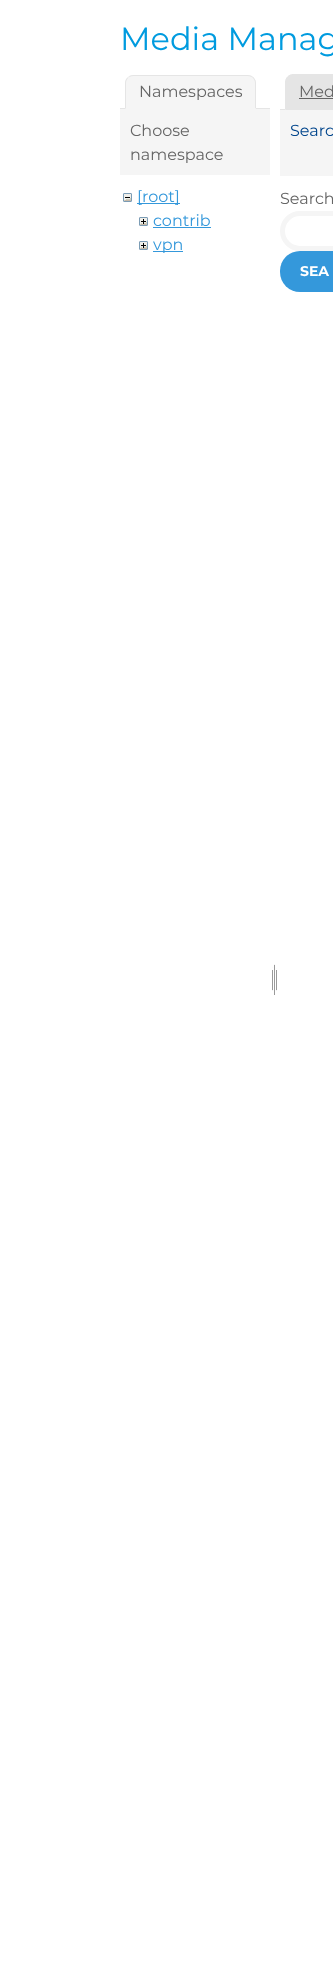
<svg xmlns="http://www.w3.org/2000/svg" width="333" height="1963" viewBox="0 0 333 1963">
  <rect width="100%" height="100%" fill="rgb(255,255,255)"/>
  <text x="120" y="50" font-family="Montserrat" font-size="32" fill="rgb(0,155,223)">Media Manag</text>
  <rect x="120" y="108" width="150" height="1" fill="rgb(229,229,229)"/>
  <path d="M133 75H248C252.5 75 256 78.5 256 83V109H125V83C125 78.5 128.5 75 133 75Z" fill="rgb(245,245,245)"/>
  <path d="M133 75C131 75 129 76 128 78C129 77 131 76 133 76H248C250 76 252 77 253 78H254C252 76 250 75 248 75Z" fill="rgb(229,229,229)"/>
  <path d="M256 109V83C256 81 255 79 253.5 77.5L253 78C254 79 255 81 255 83V108Z" fill="rgb(229,229,229)"/>
  <path d="M256 109L255 108H126L125 109Z" fill="rgb(245,245,245)"/>
  <path d="M125 109L126 108V83C126 81 127 79 128 78L127.5 77.5C126 79 125 81 125 83Z" fill="rgb(229,229,229)"/>
  <text x="139" y="97" font-family="Montserrat" font-size="16" fill="rgb(101,101,101)">Namespaces</text>
  <rect x="120" y="109" width="150" height="66" fill="rgb(245,245,245)"/>
  <g font-family="Montserrat" font-size="16" fill="rgb(101,101,101)">
    <text>
      <tspan x="130" y="136">Choose</tspan>
      <tspan x="130" y="160">namespace</tspan>
    </text>
  </g>
  <image x="123" y="193" width="9" height="9" href="pic1.png"/>
  <rect x="137" y="203" width="43" height="1" fill="rgb(52,152,219)"/>
  <text x="137" y="202" font-family="Montserrat" font-size="16" fill="rgb(52,152,219)">[root]</text>
  <image x="139" y="217" width="9" height="9" href="pic2.png"/>
  <text x="153" y="226" font-family="Montserrat" font-size="16" fill="rgb(52,152,219)">contrib</text>
  <rect x="153" y="227" width="58" height="1" fill="rgb(52,152,219)"/>
  <image x="139" y="241" width="9" height="9" href="pic2.png"/>
  <rect x="153" y="251" width="30" height="1" fill="rgb(52,152,219)"/>
  <text x="153" y="250" font-family="Montserrat" font-size="16" fill="rgb(52,152,219)">vpn</text>
  <image x="272" y="964" width="5" height="31" href="pic3.png"/>
  <path d="M293 74.5H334C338 74.5 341.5 78 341.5 82V109.5H285.5V82C285.5 78 289 74.5 293 74.5Z" fill="rgb(229,229,229)" stroke="rgb(229,229,229)"/>
  <text x="299" y="97" font-family="Montserrat" font-size="16" fill="rgb(101,101,101)">Med</text>
  <rect x="299" y="98" width="34" height="1" fill="rgb(101,101,101)"/>
  <rect x="280" y="109" width="5" height="1" fill="rgb(229,229,229)"/>
  <rect x="280" y="110" width="53" height="66" fill="rgb(245,245,245)"/>
  <text x="290" y="136" font-family="Montserrat" font-size="16" fill="rgb(0,69,140)">Searc</text>
  <text x="280" y="204" font-family="Montserrat" font-size="16" fill="rgb(101,101,101)">Search</text>
  <rect x="282.5" y="213.5" width="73" height="35" rx="17.5" fill="none" stroke="rgb(245,245,245)" stroke-width="5"/>
  <rect x="280" y="251" width="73" height="41" rx="20" fill="rgb(52,152,219)"/>
  <text x="300" y="276" font-family="Montserrat" font-size="14" font-weight="bold" fill="rgb(255,255,255)">SEA</text>
</svg>
